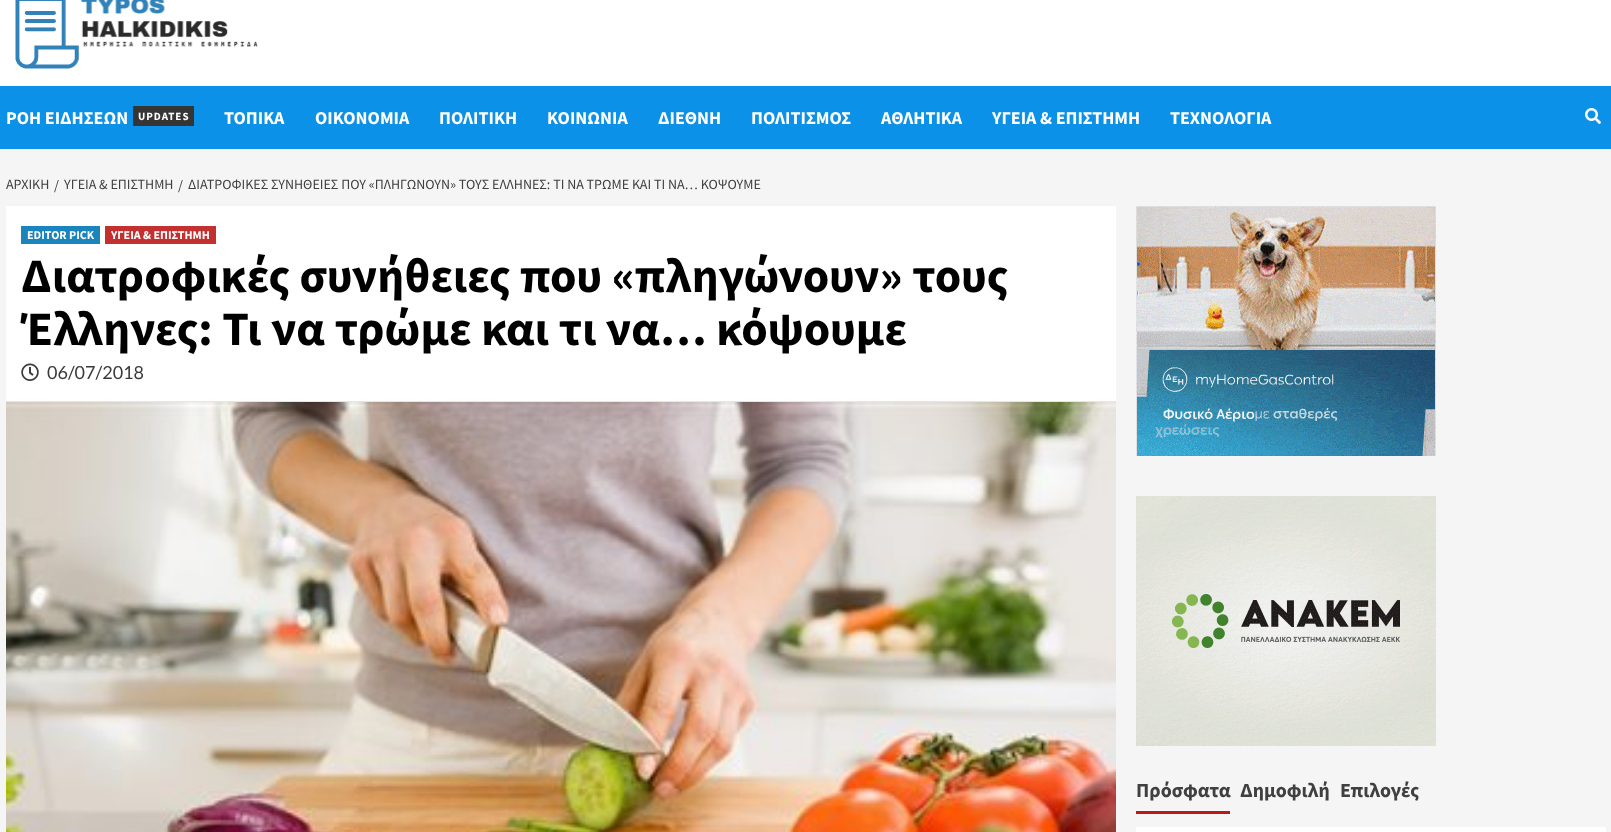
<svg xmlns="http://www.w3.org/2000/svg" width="1611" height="832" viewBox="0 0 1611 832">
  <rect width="100%" height="100%" fill="rgb(245,245,245)"/>
  <rect x="0" y="0" width="1611" height="86" fill="rgb(255,255,255)"/>
  <image x="15" y="0" width="243" height="69" href="pic1.png"/>
  <rect x="0" y="86" width="1611" height="63" fill="rgb(12,145,232)"/>
  <text x="6" y="124" font-family="Source Sans Pro" font-size="18" font-weight="bold" fill="rgb(255,255,255)">ΡΟΗ ΕΙΔΗΣΕΩΝ</text>
  <rect x="133" y="106" width="61" height="20" fill="rgb(53,53,53)"/>
  <text x="138" y="120" font-family="Source Sans Pro" font-size="11" font-weight="bold" letter-spacing="1" fill="rgb(255,255,255)">UPDATES</text>
  <g font-family="Source Sans Pro" font-size="18" font-weight="bold" fill="rgb(255,255,255)">
    <text x="224" y="124">ΤΟΠΙΚΑ</text>
    <text x="315" y="124">ΟΙΚΟΝΟΜΙΑ</text>
    <text x="439" y="124">ΠΟΛΙΤΙΚΗ</text>
    <text x="547" y="124">ΚΟΙΝΩΝΙΑ</text>
    <text x="658" y="124">ΔΙΕΘΝΗ</text>
    <text x="751" y="124">ΠΟΛΙΤΙΣΜΟΣ</text>
    <text x="881" y="124">ΑΘΛΗΤΙΚΑ</text>
    <text x="992" y="124">ΥΓΕΙΑ &amp; ΕΠΙΣΤΗΜΗ</text>
    <text x="1170" y="124">ΤΕΧΝΟΛΟΓΙΑ</text>
  </g>
  <image x="1585" y="108" width="16" height="16" href="pic2.png"/>
  <g font-family="Source Sans Pro" font-size="14" fill="rgb(64,64,64)">
    <text x="6" y="189">ΑΡΧΙΚΗ</text>
    <text x="54" y="190">/</text>
    <text x="64" y="189">ΥΓΕΙΑ &amp; ΕΠΙΣΤΗΜΗ</text>
    <text x="178" y="190">/</text>
    <text x="188" y="189">ΔΙΑΤΡΟΦΙΚΕΣ ΣΥΝΗΘΕΙΕΣ ΠΟΥ «ΠΛΗΓΩΝΟΥΝ» ΤΟΥΣ ΕΛΛΗΝΕΣ: ΤΙ ΝΑ ΤΡΩΜΕ ΚΑΙ ΤΙ ΝΑ… ΚΟΨΟΥΜΕ</text>
  </g>
  <rect x="6" y="206" width="1110" height="195" fill="rgb(255,255,255)"/>
  <rect x="6" y="401" width="1110" height="1" fill="rgb(230,230,230)"/>
  <rect x="21" y="226" width="79" height="18" fill="rgb(26,132,188)"/>
  <text x="27" y="239" font-family="Source Sans Pro" font-size="12" font-weight="bold" fill="rgb(255,255,255)">EDITOR PICK</text>
  <rect x="105" y="226" width="111" height="18" fill="rgb(194,48,48)"/>
  <text x="111" y="239" font-family="Source Sans Pro" font-size="12" font-weight="bold" fill="rgb(255,255,255)">ΥΓΕΙΑ &amp; ΕΠΙΣΤΗΜΗ</text>
  <g font-family="Source Sans Pro" font-size="48" font-weight="bold" fill="rgb(0,0,0)">
    <text>
      <tspan x="21" y="292">Διατροφικές συνήθειες που «πληγώνουν» τους</tspan>
      <tspan x="21" y="345">Έλληνες: Τι να τρώμε και τι να… κόψουμε</tspan>
    </text>
  </g>
  <image x="21" y="363" width="18" height="18" href="pic3.png"/>
  <text x="47" y="379" font-family="Lato" font-size="18" fill="rgb(58,58,58)">06/07/2018</text>
  <image x="6" y="402" width="1110" height="430" href="pic4.png"/>
  <image x="1136" y="206" width="300" height="250" href="pic5.png"/>
  <image x="1136" y="496" width="300" height="250" href="pic6.png"/>
  <text x="1136" y="797" font-family="Source Sans Pro" font-size="20" font-weight="bold" fill="rgb(64,64,64)">Πρόσφατα</text>
  <rect x="1136" y="811" width="94" height="3" fill="rgb(187,25,25)"/>
  <g font-family="Source Sans Pro" font-size="20" font-weight="bold" fill="rgb(64,64,64)">
    <text x="1240" y="797">Δημοφιλή</text>
    <text x="1340" y="797">Επιλογές</text>
  </g>
  <rect x="1136" y="827" width="470" height="5" fill="rgb(255,255,255)"/>
</svg>
